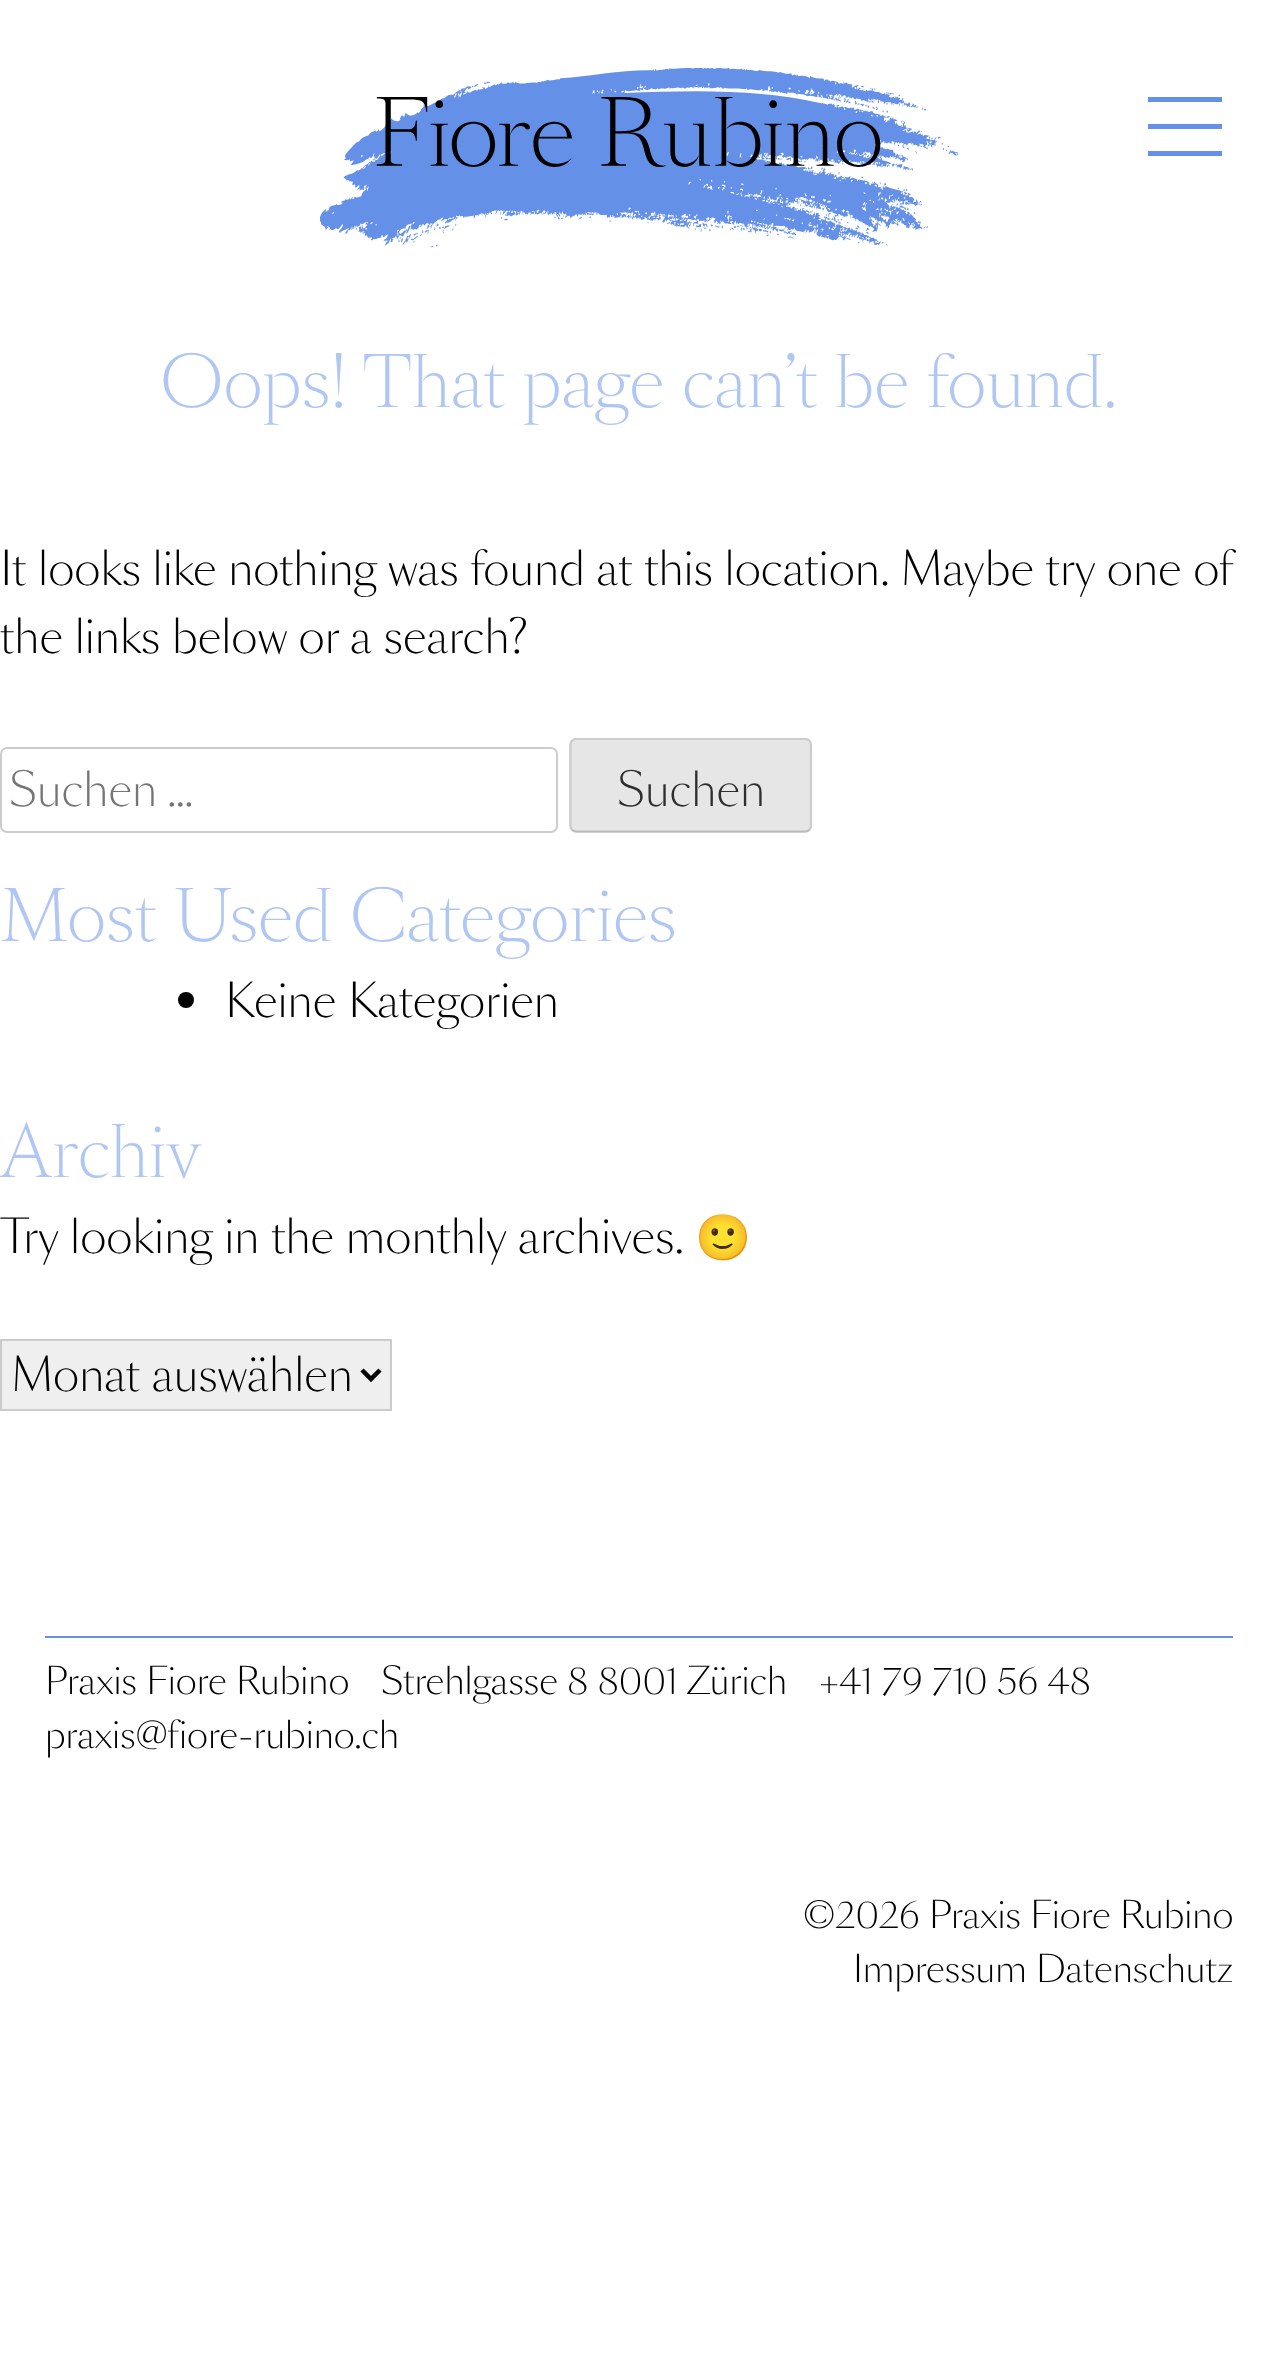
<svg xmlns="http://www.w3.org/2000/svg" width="1278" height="2358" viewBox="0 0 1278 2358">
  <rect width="100%" height="100%" fill="rgb(255,255,255)"/>
  <rect x="1148" y="97" width="74" height="5" fill="rgb(100,144,232)"/>
  <rect x="1148" y="124" width="74" height="5" fill="rgb(100,144,232)"/>
  <rect x="1148" y="151" width="74" height="5" fill="rgb(100,144,232)"/>
  <image x="320" y="68" width="639" height="180" href="pic1.png"/>
  <text x="160" y="407" font-family="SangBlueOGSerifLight" font-size="67.5" font-weight="300" fill="rgb(177,199,243)">Oops! That page can’t be found.</text>
  <g font-family="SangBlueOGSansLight" font-size="45" font-weight="300" fill="rgb(0,0,0)">
    <text>
      <tspan x="0" y="585">It looks like nothing was found at this location. Maybe try one of</tspan>
      <tspan x="0" y="653">the links below or a search?</tspan>
    </text>
  </g>
  <rect x="1" y="748" width="556" height="84" rx="6" fill="none" stroke="rgb(204,204,204)" stroke-width="2"/>
  <text x="9" y="806" font-family="SangBlueOGSansLight" font-size="45" font-weight="300" fill="rgb(117,117,117)">Suchen …</text>
  <rect x="569" y="738" width="243" height="95" rx="7" fill="rgb(230,230,230)"/>
  <path d="M809.5 829.5C808.5 831 807 831.5 805.5 831.5H576C574.5 831.5 573 831 572 829.5" fill="none" stroke="rgb(187,187,187)" stroke-width="2.2"/>
  <path d="M572 829.5C571 828.5 570.5 827 570.5 826V745C570.5 743.5 571 742 572 741C573 739.5 574.5 739 576 739H805.5C807 739 808.5 739.5 809.5 741C810.5 742 811 743.5 811 745V826C811 827 810.5 828.5 809.5 829.5" fill="none" stroke="rgb(204,204,204)" stroke-width="2.2"/>
  <text x="617" y="806" font-family="SangBlueOGSansLight" font-size="45" font-weight="300" fill="rgb(46,46,46)">Suchen</text>
  <text x="0" y="941" font-family="SangBlueOGSerifLight" font-size="67.5" font-weight="300" fill="rgb(177,199,243)">Most Used Categories</text>
  <circle cx="186" cy="1000" r="8" fill="rgb(0,0,0)"/>
  <text x="225" y="1017" font-family="SangBlueOGSansLight" font-size="45" font-weight="300" fill="rgb(0,0,0)">Keine Kategorien</text>
  <text x="0" y="1177" font-family="SangBlueOGSerifLight" font-size="67.5" font-weight="300" fill="rgb(177,199,243)">Archiv</text>
  <text x="0" y="1253" font-family="SangBlueOGSansLight" font-size="45" font-weight="300" fill="rgb(0,0,0)">Try looking in the monthly archives.</text>
  <text x="695" y="1253" font-family="Noto Color Emoji" font-size="45" fill="rgb(0,0,0)">🙂</text>
  <rect x="1" y="1340" width="390" height="70" fill="rgb(239,239,239)" stroke="rgb(204,204,204)" stroke-width="2"/>
  <path d="M362 1370L371 1379L380 1370" fill="none" stroke="rgb(0,0,0)" stroke-width="4.5"/>
  <text x="11" y="1391" font-family="SangBlueOGSansLight" font-size="45" font-weight="300" fill="rgb(0,0,0)">Monat auswählen</text>
  <rect x="45" y="1636" width="1188" height="2" fill="rgb(100,144,232)"/>
  <g font-family="SangBlueOGSansLight" font-size="36" font-weight="300" fill="rgb(0,0,0)">
    <text x="45" y="1694">Praxis Fiore Rubino</text>
    <text x="381" y="1694">Strehlgasse 8 8001 Zürich</text>
    <text x="819" y="1694">+41 79 710 56 48</text>
    <text x="45" y="1748">praxis@fiore-rubino.ch</text>
    <text x="803" y="1928">©2026 Praxis Fiore Rubino</text>
    <text x="853" y="1982">Impressum Datenschutz</text>
  </g>
</svg>
